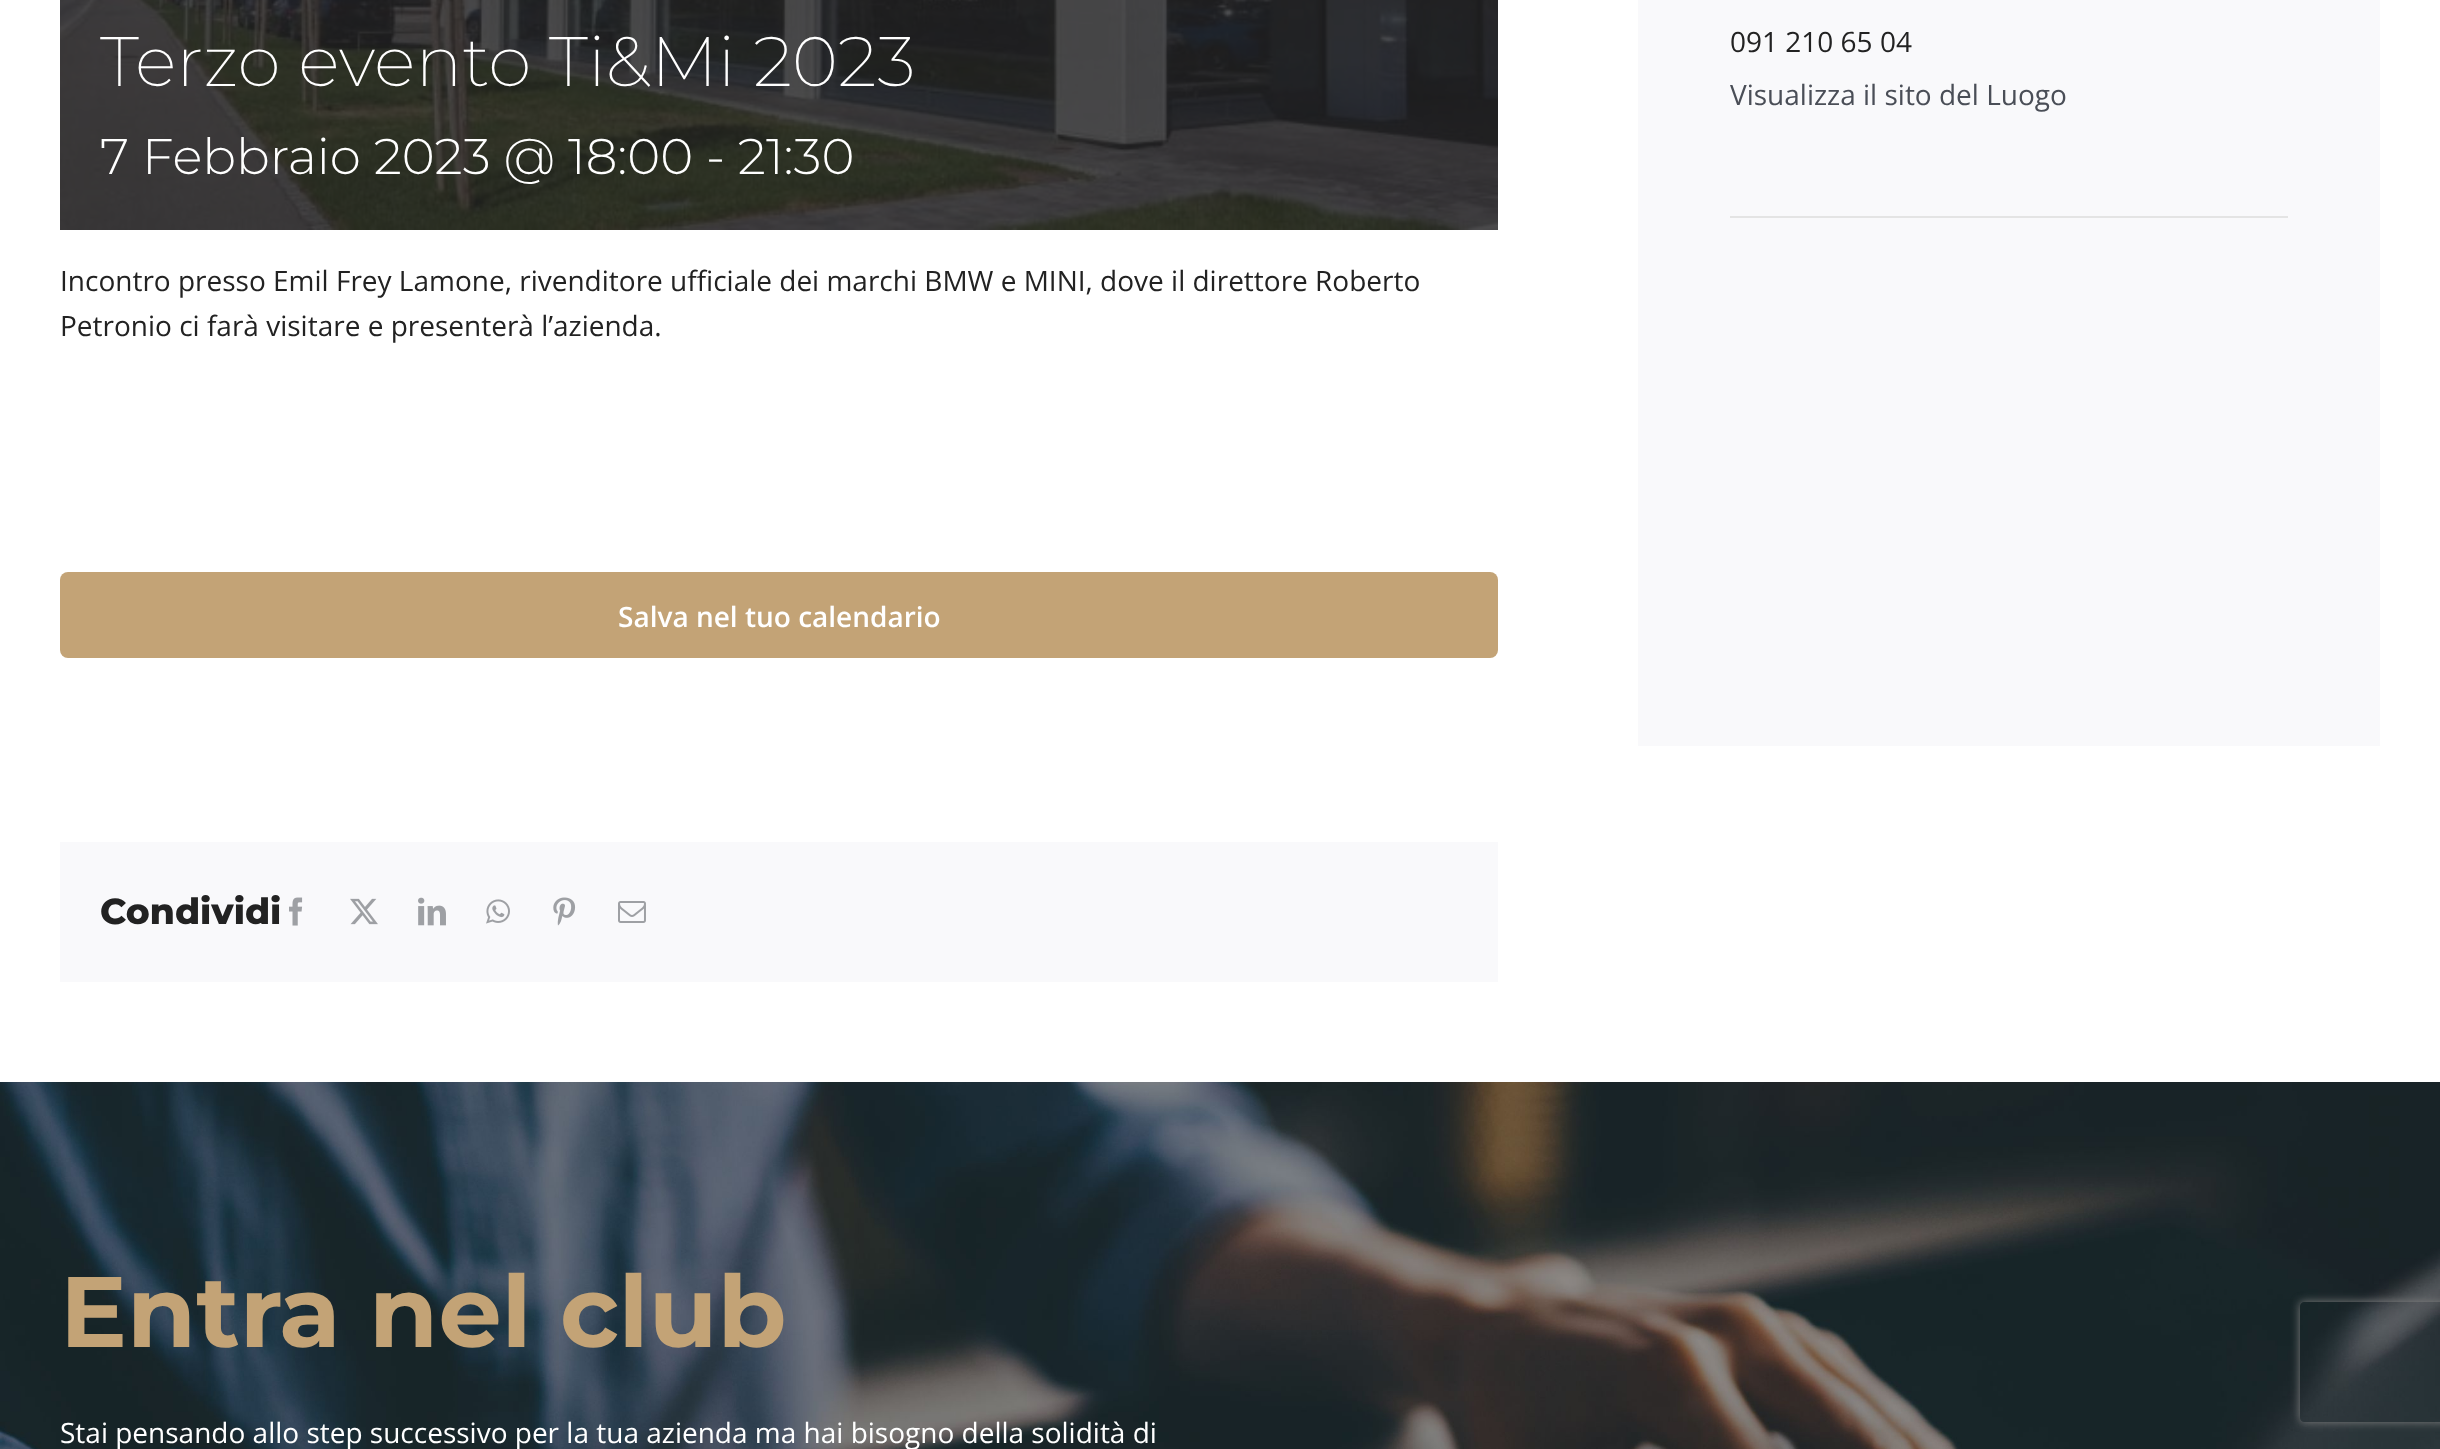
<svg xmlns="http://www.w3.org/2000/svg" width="2440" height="1449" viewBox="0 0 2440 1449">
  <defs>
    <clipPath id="clip1"><path d="M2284 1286H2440V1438H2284ZM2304 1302H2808C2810 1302 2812 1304 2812 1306V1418C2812 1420 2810 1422 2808 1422H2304C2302 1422 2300 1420 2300 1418V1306C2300 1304 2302 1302 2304 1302Z" clip-rule="evenodd"/></clipPath>
  </defs>
  <rect width="100%" height="100%" fill="rgb(255,255,255)"/>
  <image x="60" y="0" width="1438" height="230" href="pic1.png"/>
  <text x="100" y="86" font-family="Montserrat" font-size="70" font-weight="200" fill="rgb(255,255,255)">Terzo evento Ti&amp;Mi 2023</text>
  <text x="100" y="174" font-family="Montserrat" font-size="50" font-weight="300" fill="rgb(255,255,255)">7 Febbraio 2023 @ 18:00 - 21:30</text>
  <g font-family="Open Sans" font-size="28" fill="rgb(34,34,34)">
    <text>
      <tspan x="60" y="291">Incontro presso Emil Frey Lamone, rivenditore ufficiale dei marchi BMW e MINI, dove il direttore Roberto</tspan>
      <tspan x="60" y="336">Petronio ci farà visitare e presenterà l’azienda.</tspan>
    </text>
  </g>
  <rect x="60" y="572" width="1438" height="86" rx="8" fill="rgb(195,163,118)"/>
  <text x="618" y="627" font-family="Open Sans" font-size="28" font-weight="600" fill="rgb(255,255,255)">Salva nel tuo calendario</text>
  <rect x="60" y="842" width="1438" height="140" fill="rgb(249,249,251)"/>
  <text x="100" y="924" font-family="Montserrat" font-size="36" font-weight="800" fill="rgb(34,34,34)">Condividi</text>
  <image x="289" y="897" width="14" height="29" href="pic2.png"/>
  <image x="350" y="898" width="28" height="27" href="pic3.png"/>
  <image x="418" y="897" width="28" height="29" href="pic4.png"/>
  <image x="486" y="899" width="24" height="25" href="pic5.png"/>
  <image x="553" y="897" width="23" height="29" href="pic6.png"/>
  <image x="618" y="901" width="28" height="22" href="pic7.png"/>
  <rect x="1638" y="0" width="742" height="746" fill="rgb(249,249,251)"/>
  <text x="1730" y="52" font-family="Open Sans" font-size="28" fill="rgb(34,34,34)">091 210 65 04</text>
  <text x="1730" y="105" font-family="Open Sans" font-size="28" fill="rgb(74,78,87)">Visualizza il sito del Luogo</text>
  <rect x="1730" y="216" width="558" height="2" fill="rgb(228,228,228)"/>
  <image x="0" y="1082" width="2440" height="367" href="pic8.png"/>
  <text x="60" y="1347" font-family="Montserrat" font-size="100" font-weight="bold" fill="rgb(195,163,118)">Entra nel club</text>
  <text x="60" y="1443" font-family="Open Sans" font-size="28" fill="rgb(255,255,255)">Stai pensando allo step successivo per la tua azienda ma hai bisogno della solidità di</text>
  <g clip-path="url(#clip1)">
    <rect x="2300" y="1302" width="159" height="120" rx="4" fill="rgb(128,128,128)" filter="blur(5px)"/>
  </g>
</svg>
